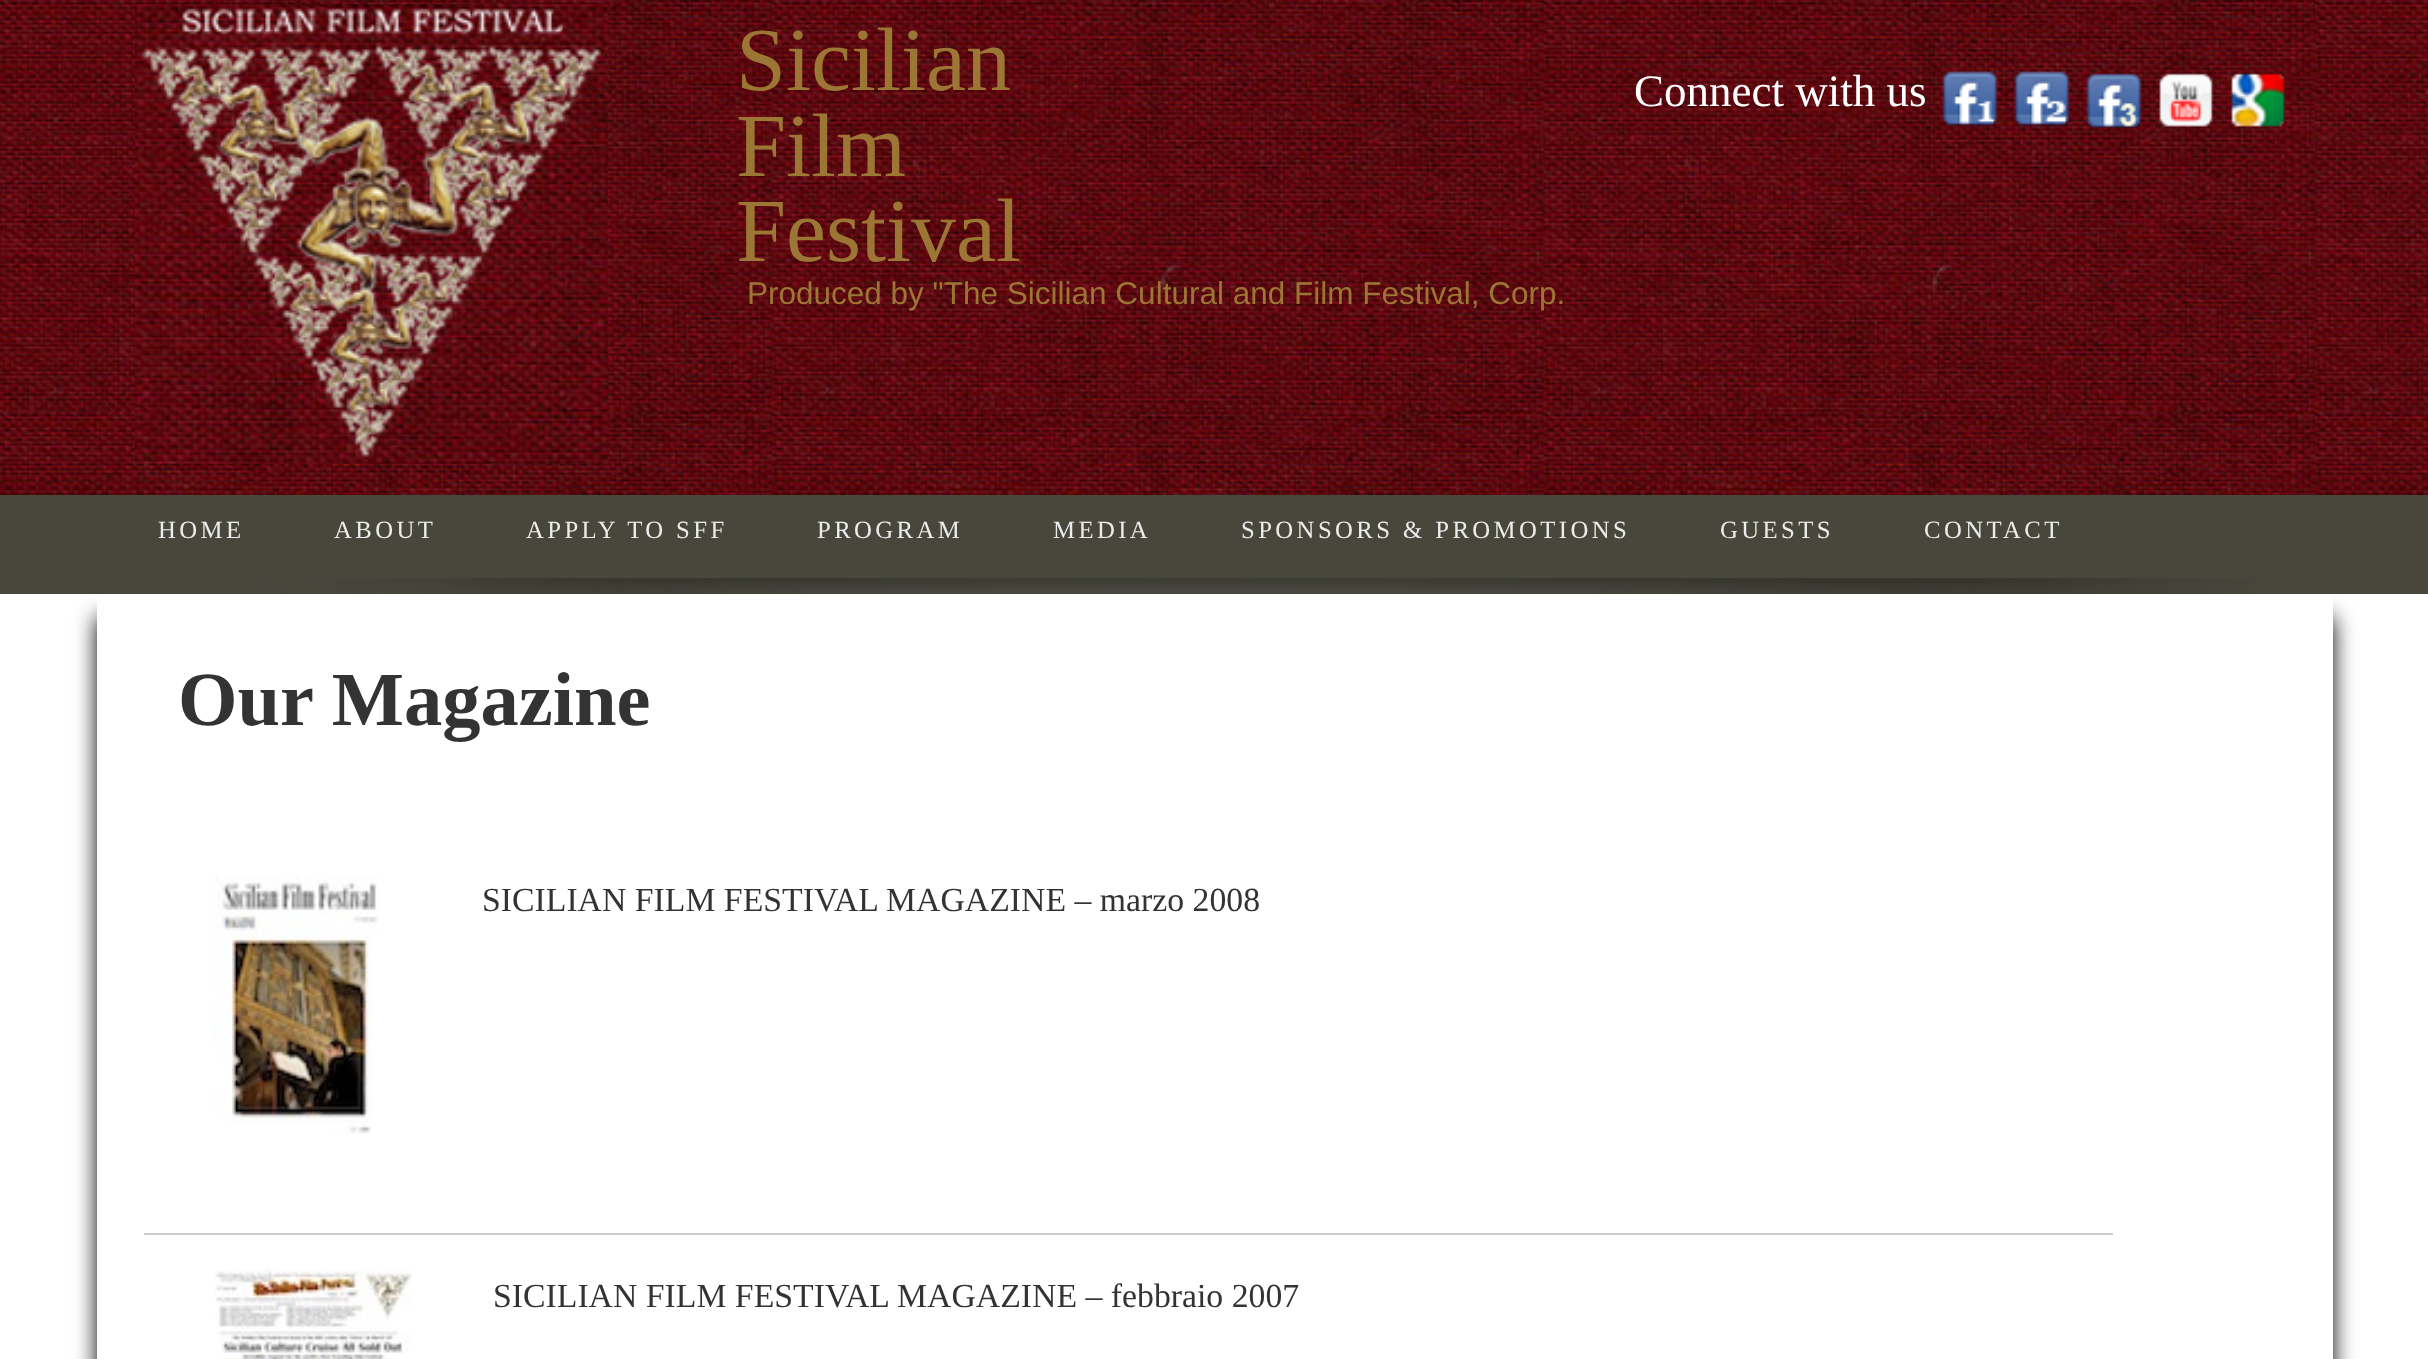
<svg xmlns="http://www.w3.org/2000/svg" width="2428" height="1359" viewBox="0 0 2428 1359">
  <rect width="100%" height="100%" fill="rgb(255,255,255)"/>
  <image x="0" y="0" width="2428" height="495" href="pic1.png"/>
  <image x="135" y="4" width="473" height="460" href="pic2.png"/>
  <g font-family="Liberation Serif" font-size="90" fill="rgb(156,118,53)">
    <text>
      <tspan x="736" y="90">Sicilian</tspan>
      <tspan x="736" y="176">Film</tspan>
      <tspan x="736" y="261">Festival</tspan>
    </text>
  </g>
  <text x="1634" y="106" font-family="Liberation Serif" font-size="45" fill="rgb(255,255,255)">Connect with us</text>
  <image x="1941" y="71" width="57" height="57" href="pic3.png"/>
  <image x="2013" y="71" width="57" height="57" href="pic4.png"/>
  <image x="2085" y="73" width="57" height="56" href="pic5.png"/>
  <image x="2159" y="73" width="54" height="54" href="pic6.png"/>
  <image x="2231" y="73" width="54" height="54" href="pic7.png"/>
  <text x="747" y="304" font-family="Liberation Sans" font-size="31.5" fill="rgb(156,118,53)">Produced by "The Sicilian Cultural and Film Festival, Corp.</text>
  <rect x="0" y="495" width="2428" height="99" fill="rgb(71,71,60)"/>
  <image x="171" y="578" width="2088" height="16" href="pic8.png"/>
  <g font-family="Liberation Serif" font-size="24.75" letter-spacing="3.4" fill="rgb(237,236,236)">
    <text x="158" y="538">HOME</text>
    <text x="334" y="538">ABOUT</text>
    <text x="526" y="538">APPLY TO SFF</text>
    <text x="817" y="538">PROGRAM</text>
    <text x="1053" y="538">MEDIA</text>
    <text x="1241" y="538">SPONSORS &amp; PROMOTIONS</text>
    <text x="1720" y="538">GUESTS</text>
    <text x="1924" y="538">CONTACT</text>
  </g>
  <rect x="97" y="617" width="2236" height="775" fill="rgb(0,0,0)" filter="blur(11px)"/>
  <rect x="97" y="594" width="2236" height="765" fill="rgb(255,255,255)"/>
  <text x="178" y="725" font-family="Liberation Serif" font-size="76.5" font-weight="bold" fill="rgb(51,51,51)">Our Magazine</text>
  <rect x="144" y="1233" width="1969" height="2" fill="rgb(204,204,204)"/>
  <image x="213" y="876" width="166" height="258" href="pic9.png"/>
  <text x="482" y="911" font-family="Liberation Serif" font-size="33.75" fill="rgb(51,51,51)">SICILIAN FILM FESTIVAL MAGAZINE – marzo 2008</text>
  <image x="215" y="1269" width="197" height="90" href="pic10.png"/>
  <text x="493" y="1307" font-family="Liberation Serif" font-size="33.75" fill="rgb(51,51,51)">SICILIAN FILM FESTIVAL MAGAZINE – febbraio 2007</text>
</svg>
